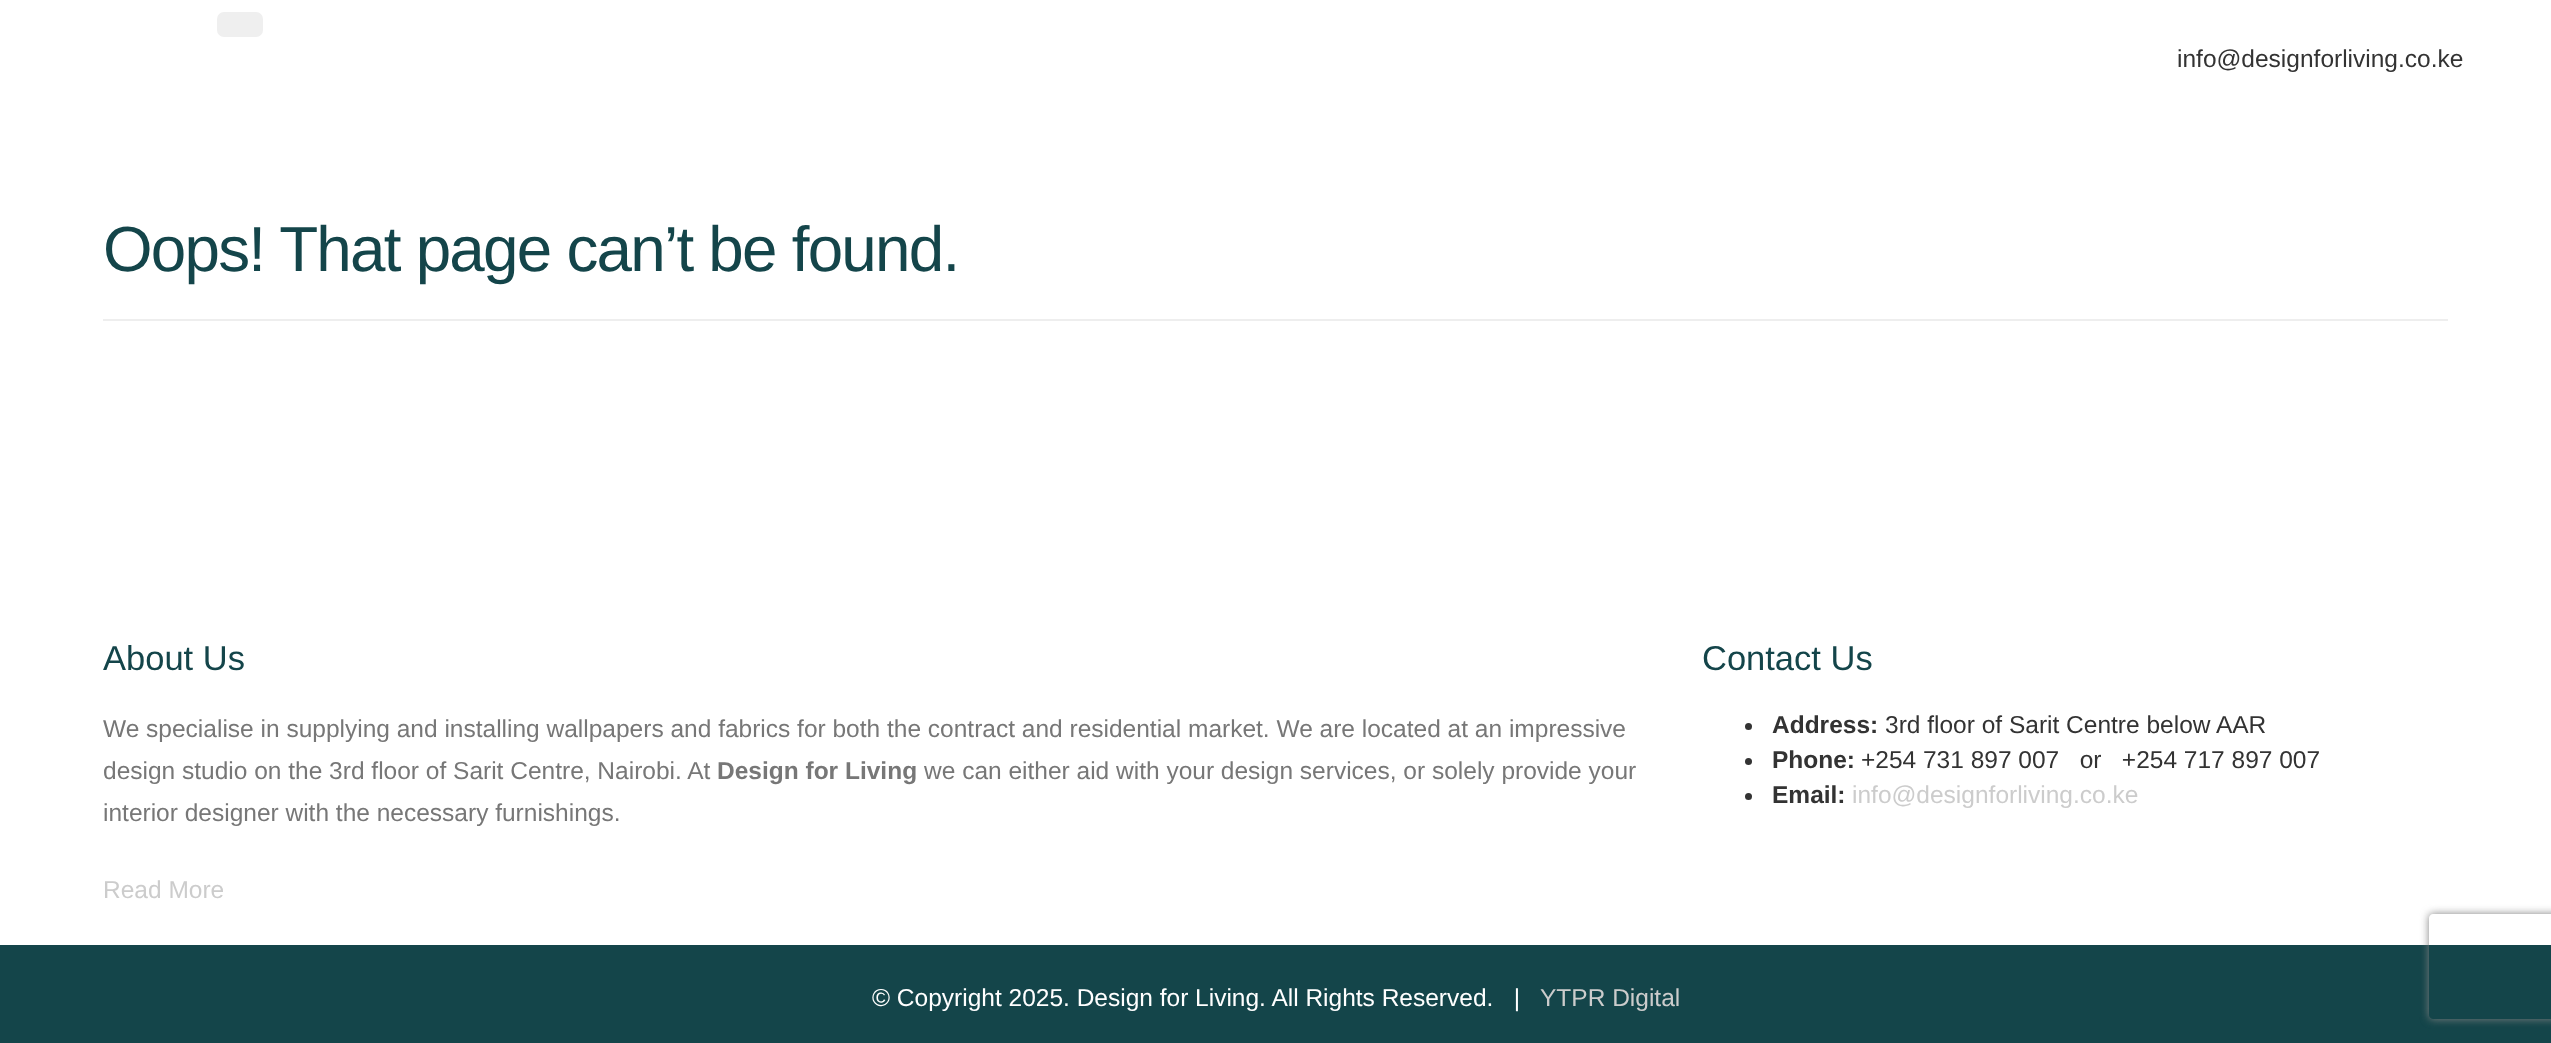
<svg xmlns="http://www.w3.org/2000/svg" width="2551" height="1043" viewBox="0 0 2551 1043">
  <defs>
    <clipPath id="clip1"><path d="M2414 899H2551V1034H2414ZM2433 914H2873C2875 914 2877 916 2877 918V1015C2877 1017 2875 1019 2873 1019H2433C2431 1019 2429 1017 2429 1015V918C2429 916 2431 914 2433 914Z" clip-rule="evenodd"/></clipPath>
  </defs>
  <rect width="100%" height="100%" fill="rgb(255,255,255)"/>
  <rect x="217" y="12" width="46" height="25" rx="7" fill="rgb(239,239,239)"/>
  <text x="2177" y="67" font-family="Liberation Sans" font-size="24.5" fill="rgb(51,51,51)">info@designforliving.co.ke</text>
  <rect x="103" y="319" width="2345" height="2" fill="rgb(238,238,238)"/>
  <text x="103" y="271" font-family="Liberation Sans" font-size="63.75" letter-spacing="-1.75" fill="rgb(20,69,74)">Oops! That page can’t be found.</text>
  <text x="103" y="670" font-family="Liberation Sans" font-size="34.5" fill="rgb(20,69,74)">About Us</text>
  <g font-family="Liberation Sans" font-size="24.5" fill="rgb(119,119,119)">
    <text>
      <tspan x="103" y="737">We specialise in supplying and installing wallpapers and fabrics for both the contract and residential market. We are located at an impressive</tspan>
      <tspan x="103" y="779">design studio on the 3rd floor of Sarit Centre, Nairobi. At</tspan>
    </text>
  </g>
  <text x="717" y="779" font-family="Liberation Sans" font-size="24.5" font-weight="bold" fill="rgb(119,119,119)">Design for Living</text>
  <g font-family="Liberation Sans" font-size="24.5" fill="rgb(119,119,119)">
    <text x="924" y="779">we can either aid with your design services, or solely provide your</text>
    <text x="103" y="821">interior designer with the necessary furnishings.</text>
  </g>
  <text x="103" y="898" font-family="Liberation Sans" font-size="24.5" fill="rgb(204,204,204)">Read More</text>
  <text x="1702" y="670" font-family="Liberation Sans" font-size="34.5" fill="rgb(20,69,74)">Contact Us</text>
  <circle cx="1748.5" cy="726.5" r="3.5" fill="rgb(51,51,51)"/>
  <text x="1772" y="733" font-family="Liberation Sans" font-size="24.5" font-weight="bold" fill="rgb(51,51,51)">Address:</text>
  <text x="1885" y="733" font-family="Liberation Sans" font-size="24.5" fill="rgb(51,51,51)">3rd floor of Sarit Centre below AAR</text>
  <circle cx="1748.5" cy="761.5" r="3.5" fill="rgb(51,51,51)"/>
  <text x="1772" y="768" font-family="Liberation Sans" font-size="24.5" font-weight="bold" fill="rgb(51,51,51)">Phone:</text>
  <text x="1861" y="768" font-family="Liberation Sans" font-size="24.5" fill="rgb(51,51,51)" xml:space="preserve">+254 731 897 007   or   +254 717 897 007</text>
  <circle cx="1748.5" cy="796.5" r="3.5" fill="rgb(51,51,51)"/>
  <text x="1772" y="803" font-family="Liberation Sans" font-size="24.5" font-weight="bold" fill="rgb(51,51,51)">Email:</text>
  <text x="1852" y="803" font-family="Liberation Sans" font-size="24.5" fill="rgb(204,204,204)">info@designforliving.co.ke</text>
  <rect x="0" y="945" width="2551" height="98" fill="rgb(20,69,74)"/>
  <text x="872" y="1006" font-family="Liberation Sans" font-size="24.5" fill="rgb(255,255,255)" xml:space="preserve">© Copyright 2025. Design for Living. All Rights Reserved.   |</text>
  <text x="1540" y="1006" font-family="Liberation Sans" font-size="24.5" fill="rgb(204,204,204)">YTPR Digital</text>
  <g clip-path="url(#clip1)">
    <rect x="2429" y="914" width="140" height="105" rx="4" fill="rgb(128,128,128)" filter="blur(4.5px)"/>
  </g>
</svg>
